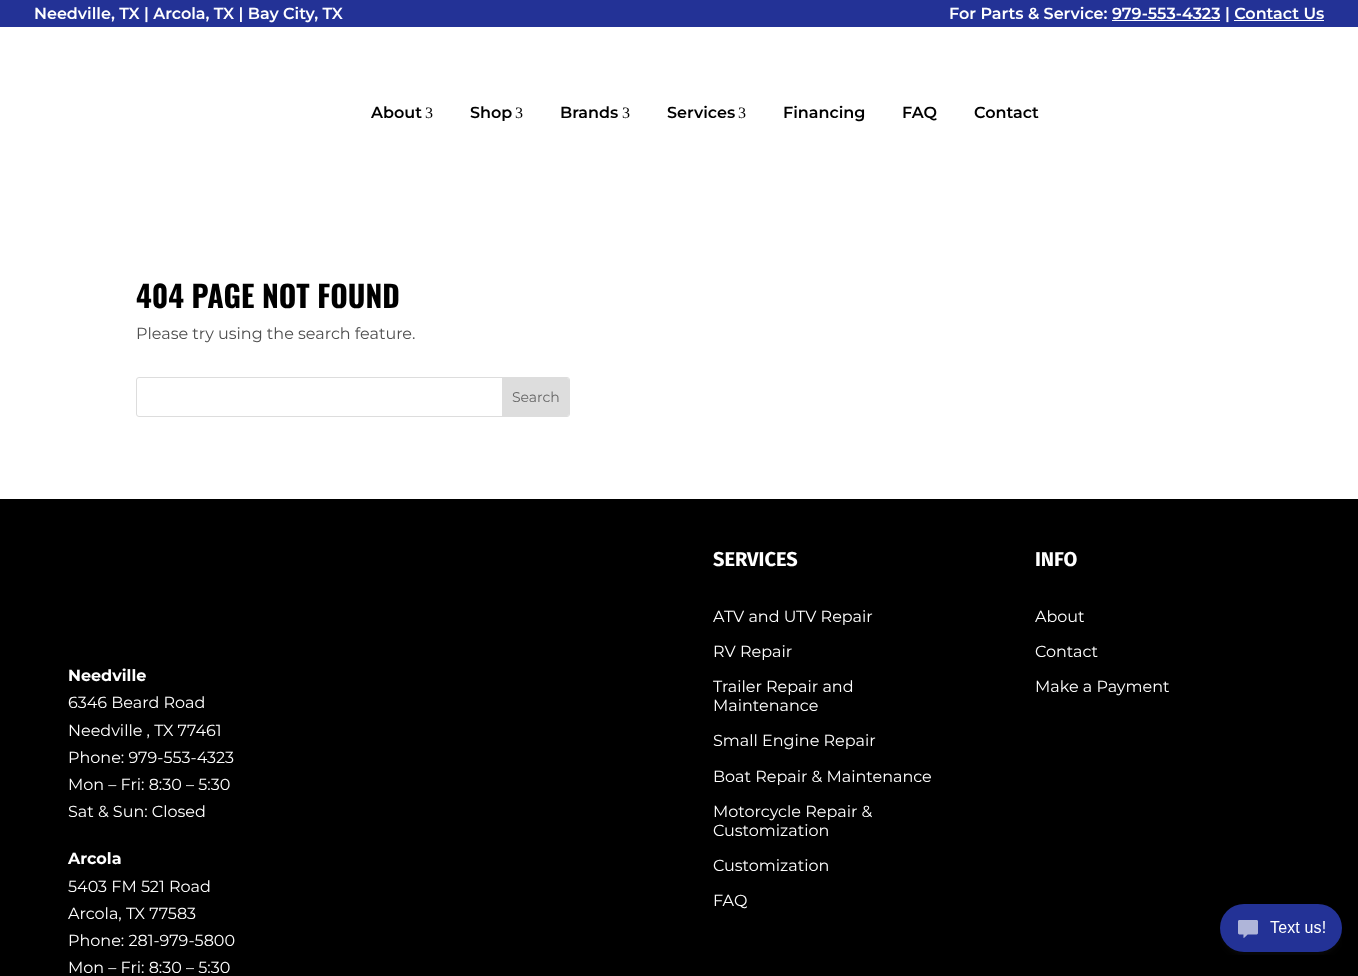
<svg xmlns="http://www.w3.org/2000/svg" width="1358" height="976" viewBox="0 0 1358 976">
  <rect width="100%" height="100%" fill="rgb(255,255,255)"/>
  <rect x="0" y="0" width="1358" height="27" fill="rgb(35,50,150)"/>
  <g font-family="Montserrat" font-size="16" font-weight="600" fill="rgb(255,255,255)">
    <text x="34" y="19">Needville, TX | Arcola, TX | Bay City, TX</text>
    <text x="949" y="19">For Parts &amp; Service: 979-553-4323 | Contact Us</text>
  </g>
  <rect x="1112" y="20" width="108" height="1" fill="rgb(255,255,255)"/>
  <rect x="1234" y="20" width="90" height="1" fill="rgb(255,255,255)"/>
  <text x="371" y="118" font-family="Montserrat" font-size="16" font-weight="600" fill="rgb(0,0,0)">About</text>
  <text x="425" y="118" font-family="Liberation Serif" font-size="16" fill="rgb(0,0,0)">3</text>
  <text x="470" y="118" font-family="Montserrat" font-size="16" font-weight="600" fill="rgb(0,0,0)">Shop</text>
  <text x="515" y="118" font-family="Liberation Serif" font-size="16" fill="rgb(0,0,0)">3</text>
  <text x="560" y="118" font-family="Montserrat" font-size="16" font-weight="600" fill="rgb(0,0,0)">Brands</text>
  <text x="622" y="118" font-family="Liberation Serif" font-size="16" fill="rgb(0,0,0)">3</text>
  <text x="667" y="118" font-family="Montserrat" font-size="16" font-weight="600" fill="rgb(0,0,0)">Services</text>
  <text x="738" y="118" font-family="Liberation Serif" font-size="16" fill="rgb(0,0,0)">3</text>
  <g font-family="Montserrat" font-size="16" font-weight="600" fill="rgb(0,0,0)">
    <text x="783" y="118">Financing</text>
    <text x="902" y="118">FAQ</text>
    <text x="974" y="118">Contact</text>
  </g>
  <text x="136" y="308" font-family="Oswald" font-size="30" font-weight="bold" fill="rgb(0,0,0)">404 PAGE NOT FOUND</text>
  <text x="136" y="339" font-family="Montserrat" font-size="16" fill="rgb(79,79,79)">Please try using the search feature.</text>
  <rect x="136.5" y="377.5" width="433" height="39" rx="2.5" fill="none" stroke="rgb(221,221,221)"/>
  <path d="M502 378H567C568 378 569 379 569 380V414C569 415 568 416 567 416H502Z" fill="rgb(221,221,221)"/>
  <text x="512" y="402" font-family="Montserrat" font-size="14" fill="rgb(102,102,102)">Search</text>
  <rect x="0" y="499" width="1358" height="477" fill="rgb(0,0,0)"/>
  <text x="713" y="566" font-family="Fira Sans" font-size="20" font-weight="bold" fill="rgb(255,255,255)">SERVICES</text>
  <g font-family="Montserrat" font-size="16" fill="rgb(255,255,255)">
    <text x="713" y="622">ATV and UTV Repair</text>
    <text x="713" y="657">RV Repair</text>
    <text>
      <tspan x="713" y="692">Trailer Repair and</tspan>
      <tspan x="713" y="711">Maintenance</tspan>
    </text>
    <text x="713" y="746">Small Engine Repair</text>
    <text x="713" y="782">Boat Repair &amp; Maintenance</text>
    <text>
      <tspan x="713" y="817">Motorcycle Repair &amp;</tspan>
      <tspan x="713" y="836">Customization</tspan>
    </text>
    <text x="713" y="871">Customization</text>
    <text x="713" y="906">FAQ</text>
  </g>
  <text x="1035" y="566" font-family="Fira Sans" font-size="20" font-weight="bold" fill="rgb(255,255,255)">INFO</text>
  <g font-family="Montserrat" font-size="16" fill="rgb(255,255,255)">
    <text x="1035" y="622">About</text>
    <text x="1035" y="657">Contact</text>
    <text x="1035" y="692">Make a Payment</text>
  </g>
  <text x="68" y="681" font-family="Montserrat" font-size="16" font-weight="bold" fill="rgb(255,255,255)">Needville</text>
  <g font-family="Montserrat" font-size="16" fill="rgb(255,255,255)">
    <text>
      <tspan x="68" y="708">6346 Beard Road</tspan>
      <tspan x="68" y="736">Needville , TX 77461</tspan>
      <tspan x="68" y="763">Phone: 979-553-4323</tspan>
      <tspan x="68" y="790">Mon – Fri: 8:30 – 5:30</tspan>
      <tspan x="68" y="817">Sat &amp; Sun: Closed</tspan>
    </text>
  </g>
  <text x="68" y="864" font-family="Montserrat" font-size="16" font-weight="bold" fill="rgb(255,255,255)">Arcola</text>
  <g font-family="Montserrat" font-size="16" fill="rgb(255,255,255)">
    <text>
      <tspan x="68" y="892">5403 FM 521 Road</tspan>
      <tspan x="68" y="919">Arcola, TX 77583</tspan>
      <tspan x="68" y="946">Phone: 281-979-5800</tspan>
      <tspan x="68" y="973">Mon – Fri: 8:30 – 5:30</tspan>
    </text>
  </g>
  <image x="1220" y="904" width="122" height="51" href="pic1.png"/>
</svg>
